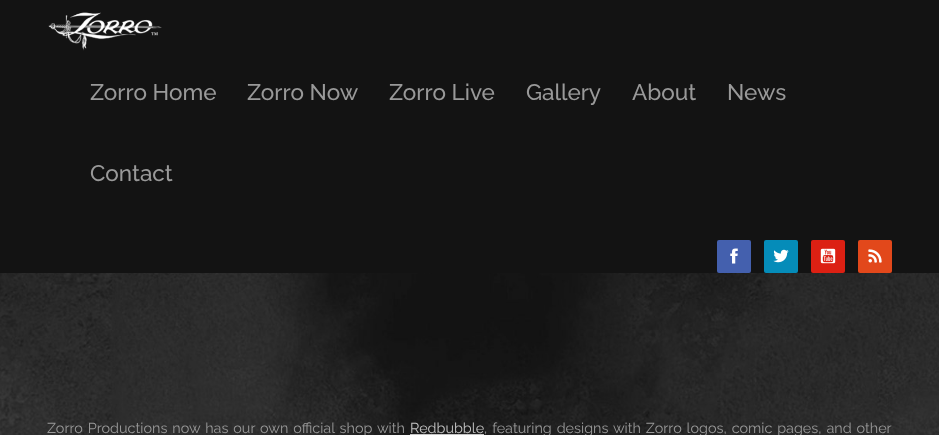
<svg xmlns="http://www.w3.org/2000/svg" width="939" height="435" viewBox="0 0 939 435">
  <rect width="100%" height="100%" fill="rgb(255,255,255)"/>
  <rect x="0" y="0" width="939" height="273" fill="rgb(19,19,19)"/>
  <image x="48" y="12" width="114" height="39" href="pic1.png"/>
  <g font-family="Raleway" font-size="22.5" font-weight="500" fill="rgb(153,153,153)">
    <text x="90" y="100">Zorro Home</text>
    <text x="247" y="100">Zorro Now</text>
    <text x="389" y="100">Zorro Live</text>
    <text x="526" y="100">Gallery</text>
    <text x="632" y="100">About</text>
    <text x="727" y="100">News</text>
    <text x="90" y="181">Contact</text>
  </g>
  <rect x="717" y="240" width="34" height="33" rx="2" fill="rgb(68,96,174)"/>
  <image x="730" y="248" width="8" height="16" href="pic2.png"/>
  <rect x="764" y="240" width="34" height="33" rx="2" fill="rgb(5,140,185)"/>
  <image x="773" y="249" width="16" height="14" href="pic3.png"/>
  <rect x="811" y="240" width="34" height="33" rx="2" fill="rgb(220,32,19)"/>
  <image x="820" y="248" width="16" height="16" href="pic4.png"/>
  <rect x="858" y="240" width="34" height="33" rx="2" fill="rgb(226,72,27)"/>
  <image x="868" y="249" width="14" height="14" href="pic5.png"/>
  <image x="0" y="273" width="939" height="162" href="pic6.png"/>
  <text x="47" y="433" word-spacing="1.25" font-family="Raleway" font-size="14.4" fill="rgb(153,153,153)">Zorro Productions now has our own official shop with</text>
  <text x="410" y="433" font-family="Raleway" font-size="14.4" fill="rgb(196,196,196)">Redbubble</text>
  <rect x="410" y="434" width="74" height="1" fill="rgb(196,196,196)"/>
  <text x="484" y="433" word-spacing="1.25" font-family="Raleway" font-size="14.4" fill="rgb(153,153,153)">, featuring designs with Zorro logos, comic pages, and other</text>
</svg>
